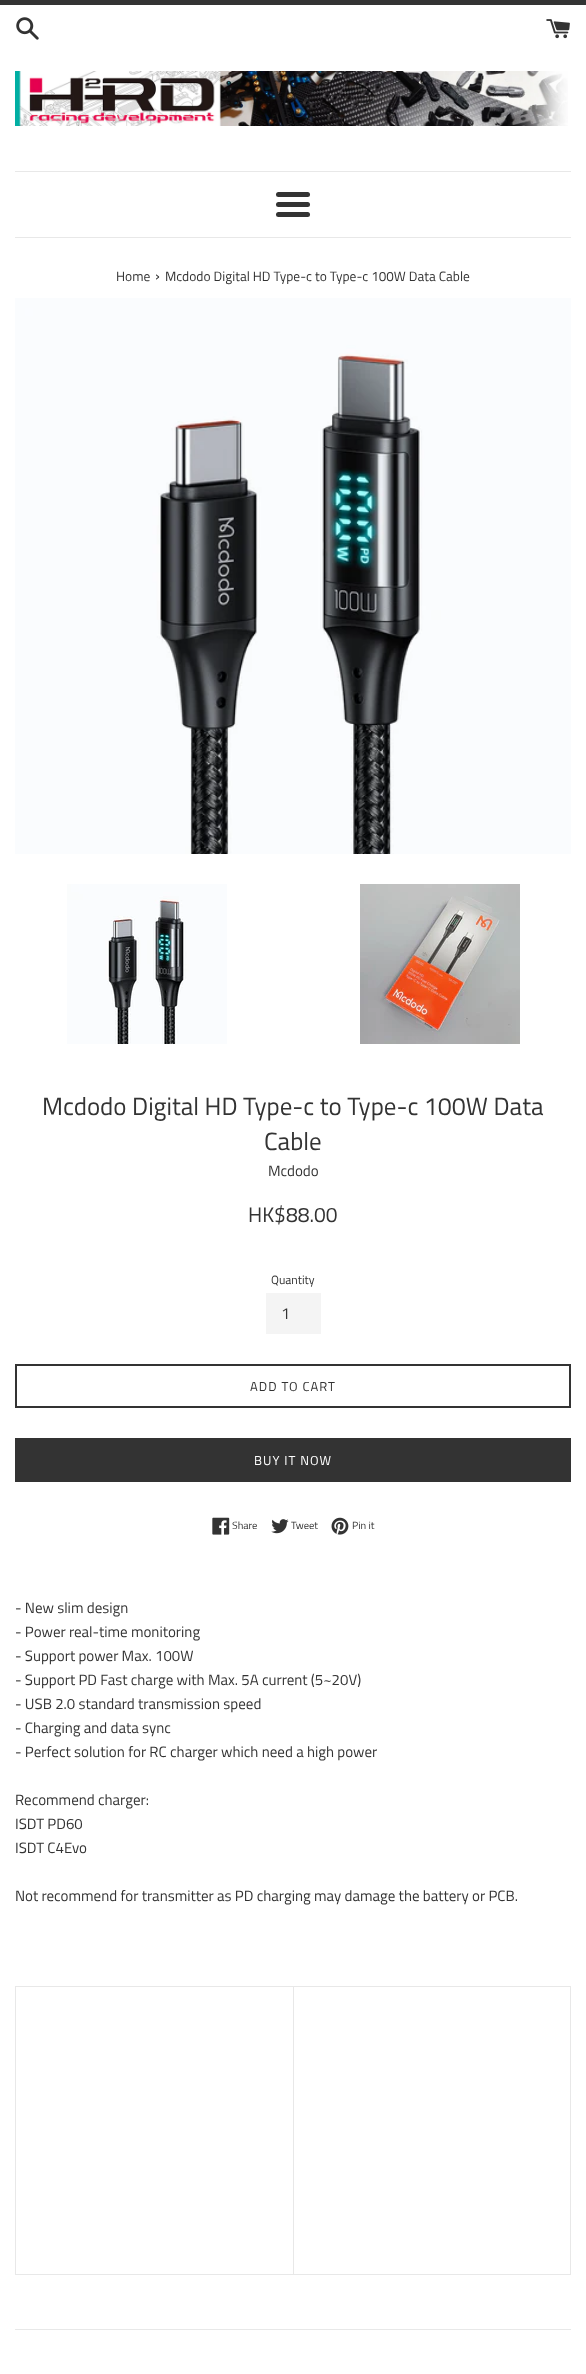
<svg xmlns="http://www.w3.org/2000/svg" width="586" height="2374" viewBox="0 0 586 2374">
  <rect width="100%" height="100%" fill="rgb(255,255,255)"/>
  <rect x="0" y="0" width="586" height="5" fill="rgb(51,51,51)"/>
  <image x="16" y="17" width="23" height="23" href="pic1.png"/>
  <image x="546" y="19" width="24" height="20" href="pic2.png"/>
  <image x="15" y="71" width="553" height="55" href="pic3.png"/>
  <rect x="15" y="171" width="556" height="1" fill="rgb(232,232,232)"/>
  <rect x="276" y="192" width="34" height="5" rx="2.5" fill="rgb(51,51,51)"/>
  <rect x="276" y="202" width="34" height="5" rx="2.5" fill="rgb(51,51,51)"/>
  <rect x="276" y="212" width="34" height="5" rx="2.5" fill="rgb(51,51,51)"/>
  <rect x="15" y="237" width="556" height="1" fill="rgb(232,232,232)"/>
  <text x="116" y="281" font-family="Titillium Web" font-size="13.5" fill="rgb(51,51,51)">Home</text>
  <text x="155" y="281" font-family="Titillium Web" font-size="16" fill="rgb(51,51,51)">›</text>
  <text x="165" y="281" font-family="Titillium Web" font-size="13.5" fill="rgb(51,51,51)">Mcdodo Digital HD Type-c to Type-c 100W Data Cable</text>
  <image x="15" y="298" width="556" height="556" href="pic4.png"/>
  <image x="67" y="884" width="160" height="160" href="pic5.png"/>
  <image x="360" y="884" width="160" height="160" href="pic6.png"/>
  <g font-family="Titillium Web" font-size="25" fill="rgb(51,51,51)">
    <text x="42" y="1115">Mcdodo Digital HD Type-c to Type-c 100W Data</text>
    <text x="264" y="1150">Cable</text>
  </g>
  <text x="268" y="1176" font-family="Titillium Web" font-size="15" fill="rgb(51,51,51)">Mcdodo</text>
  <text x="248" y="1222" font-family="Titillium Web" font-size="21" fill="rgb(51,51,51)">HK$88.00</text>
  <text x="271" y="1284" font-family="Titillium Web" font-size="12" fill="rgb(51,51,51)">Quantity</text>
  <rect x="266" y="1293" width="55" height="41" fill="rgb(244,244,244)"/>
  <text x="281" y="1319" font-family="Titillium Web" font-size="16" fill="rgb(51,51,51)">1</text>
  <rect x="16" y="1365" width="554" height="42" fill="none" stroke="rgb(51,51,51)" stroke-width="2"/>
  <text x="250" y="1391" font-family="Titillium Web" font-size="13" letter-spacing="1" fill="rgb(51,51,51)">ADD TO CART</text>
  <rect x="15" y="1438" width="556" height="44" fill="rgb(51,51,51)"/>
  <text x="254" y="1465" font-family="Titillium Web" font-size="13" letter-spacing="1" fill="rgb(255,255,255)">BUY IT NOW</text>
  <image x="212" y="1517" width="18" height="18" href="pic7.png"/>
  <text x="232" y="1529" font-family="Titillium Web" font-size="10.5" fill="rgb(51,51,51)">Share</text>
  <image x="271" y="1519" width="18" height="15" href="pic8.png"/>
  <text x="291" y="1529" font-family="Titillium Web" font-size="10.5" fill="rgb(51,51,51)">Tweet</text>
  <image x="331" y="1517" width="18" height="18" href="pic9.png"/>
  <text x="352" y="1529" font-family="Titillium Web" font-size="10.5" fill="rgb(51,51,51)">Pin it</text>
  <g font-family="Titillium Web" font-size="15" fill="rgb(51,51,51)">
    <text>
      <tspan x="15" y="1613">- New slim design</tspan>
      <tspan x="15" y="1637">- Power real-time monitoring</tspan>
      <tspan x="15" y="1661">- Support power Max. 100W</tspan>
      <tspan x="15" y="1685">- Support PD Fast charge with Max. 5A current (5~20V)</tspan>
      <tspan x="15" y="1709">- USB 2.0 standard transmission speed</tspan>
      <tspan x="15" y="1733">- Charging and data sync</tspan>
      <tspan x="15" y="1757">- Perfect solution for RC charger which need a high power</tspan>
    </text>
    <text>
      <tspan x="15" y="1805">Recommend charger:</tspan>
      <tspan x="15" y="1829">ISDT PD60</tspan>
      <tspan x="15" y="1853">ISDT C4Evo</tspan>
    </text>
    <text x="15" y="1901">Not recommend for transmitter as PD charging may damage the battery or PCB.</text>
  </g>
  <rect x="15" y="1986" width="556" height="1" fill="rgb(232,232,232)"/>
  <rect x="570" y="1986" width="1" height="289" fill="rgb(232,232,232)"/>
  <rect x="15" y="2274" width="556" height="1" fill="rgb(232,232,232)"/>
  <rect x="15" y="1986" width="1" height="289" fill="rgb(232,232,232)"/>
  <rect x="293" y="1986" width="1" height="289" fill="rgb(232,232,232)"/>
  <rect x="15" y="2329" width="556" height="1" fill="rgb(232,232,232)"/>
</svg>
